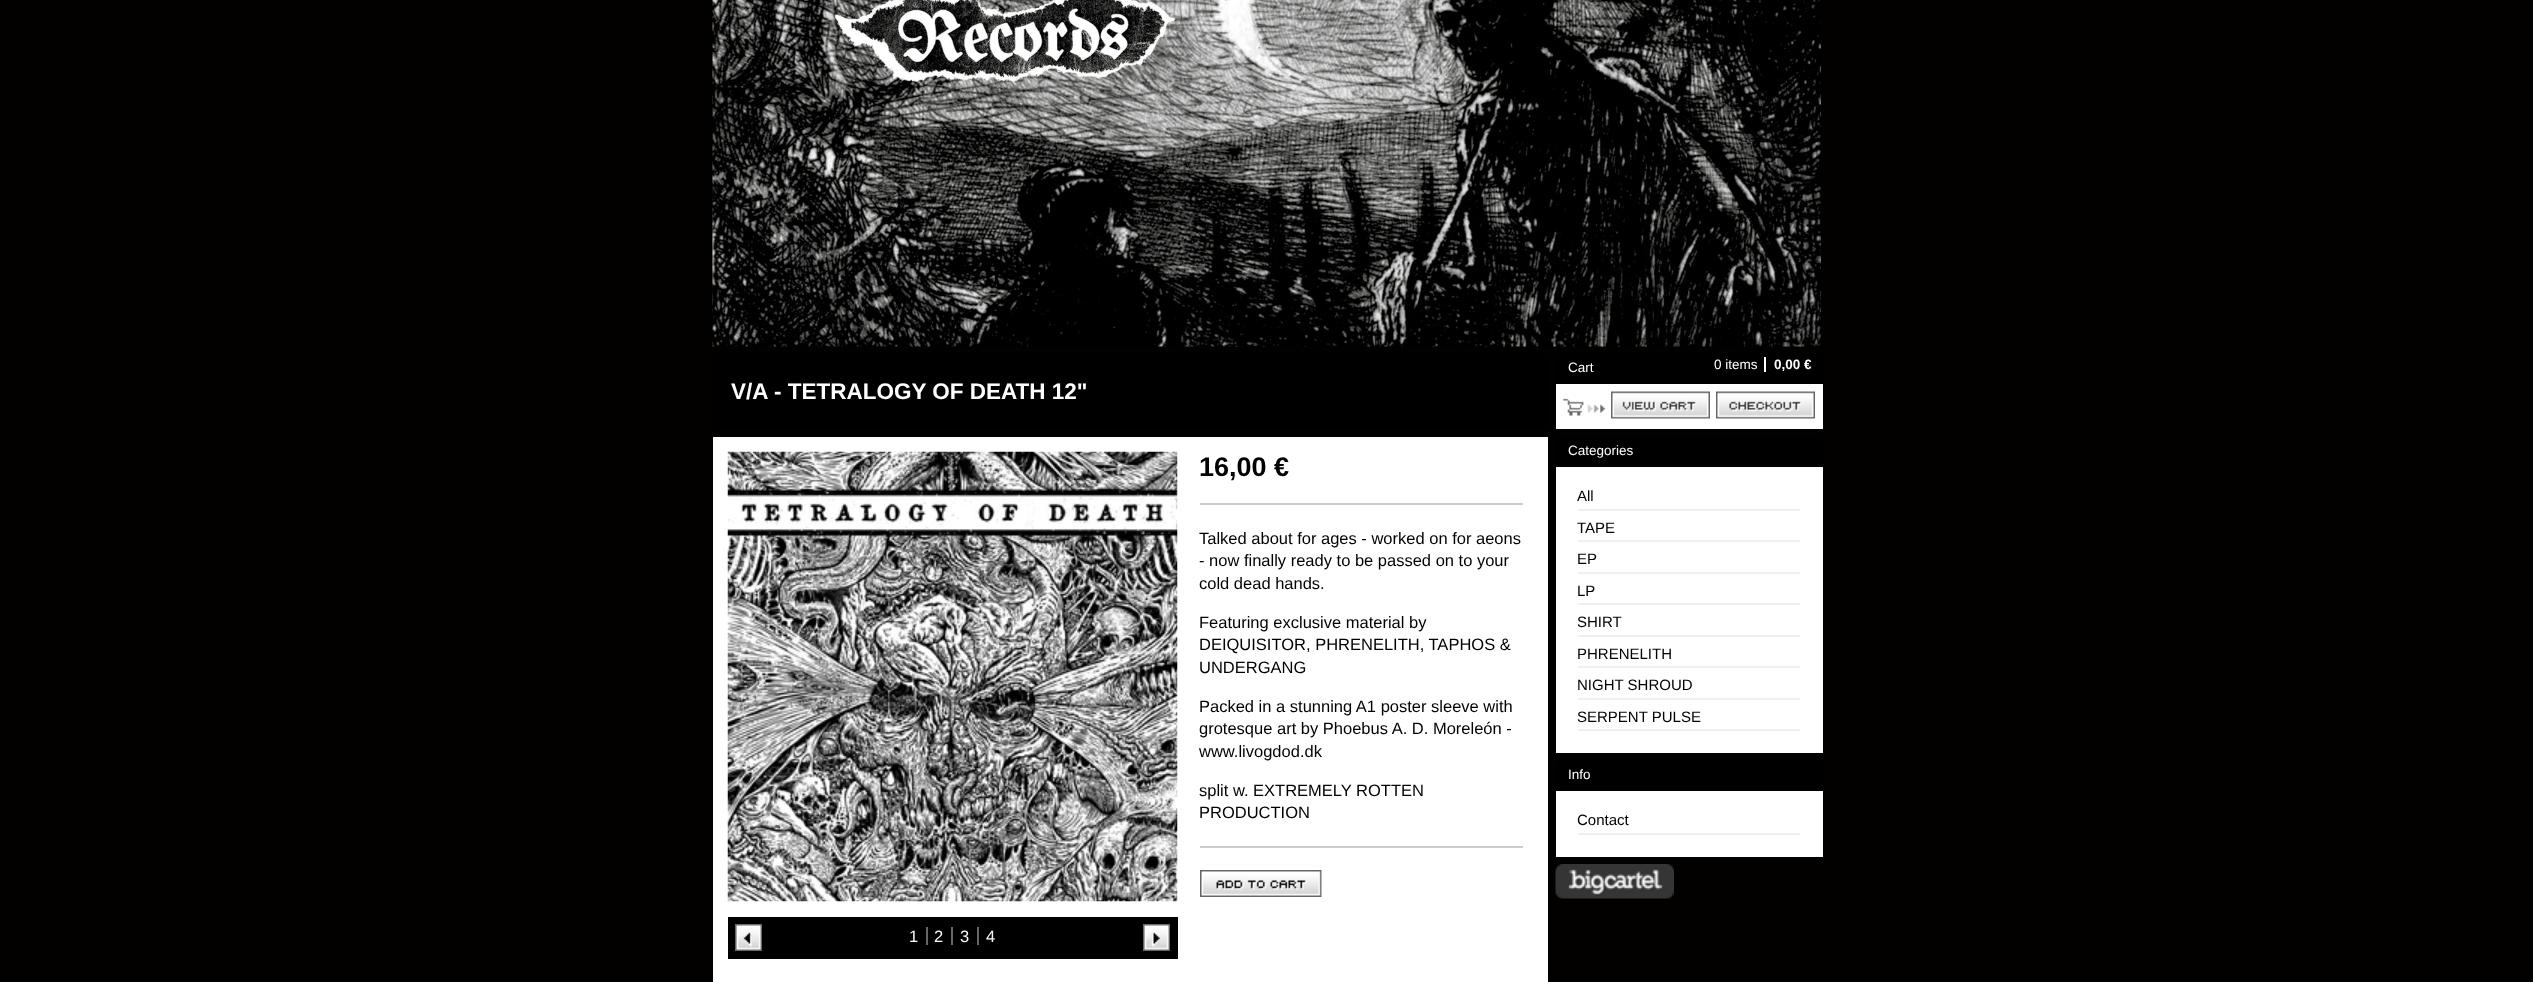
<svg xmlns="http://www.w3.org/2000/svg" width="2533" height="982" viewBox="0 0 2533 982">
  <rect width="100%" height="100%" fill="rgb(3,0,0)"/>
  <image x="712" y="0" width="1109" height="347" href="pic1.png"/>
  <rect x="713" y="354" width="835" height="75" fill="rgb(0,0,0)"/>
  <text x="731" y="399" font-family="Liberation Sans" font-size="22.5" font-weight="bold" fill="rgb(255,255,255)">V/A - TETRALOGY OF DEATH 12"</text>
  <rect x="713" y="437" width="835" height="545" fill="rgb(255,255,255)"/>
  <rect x="1200" y="503" width="323" height="2" fill="rgb(204,204,204)"/>
  <text x="1199" y="476" font-family="Liberation Sans" font-size="27" font-weight="bold" fill="rgb(0,0,0)">16,00 €</text>
  <rect x="1200" y="846" width="323" height="2" fill="rgb(204,204,204)"/>
  <g font-family="Liberation Sans" font-size="16.5" fill="rgb(0,0,0)">
    <text>
      <tspan x="1199" y="544">Talked about for ages - worked on for aeons</tspan>
      <tspan x="1199" y="566">- now finally ready to be passed on to your</tspan>
      <tspan x="1199" y="589">cold dead hands.</tspan>
    </text>
    <text>
      <tspan x="1199" y="628">Featuring exclusive material by</tspan>
      <tspan x="1199" y="650">DEIQUISITOR, PHRENELITH, TAPHOS &amp;</tspan>
      <tspan x="1199" y="673">UNDERGANG</tspan>
    </text>
    <text>
      <tspan x="1199" y="712">Packed in a stunning A1 poster sleeve with</tspan>
      <tspan x="1199" y="734">grotesque art by Phoebus A. D. Moreleón -</tspan>
      <tspan x="1199" y="757">www.livogdod.dk</tspan>
    </text>
    <text>
      <tspan x="1199" y="796">split w. EXTREMELY ROTTEN</tspan>
      <tspan x="1199" y="818">PRODUCTION</tspan>
    </text>
  </g>
  <image x="1200" y="870" width="122" height="27" href="pic2.png"/>
  <image x="727" y="451" width="451" height="451" href="pic3.png"/>
  <rect x="728" y="917" width="450" height="42" fill="rgb(0,0,0)"/>
  <image x="735" y="924" width="27" height="27" href="pic4.png"/>
  <g font-family="Liberation Sans" font-size="16.5" fill="rgb(252,249,249)">
    <text x="909" y="942">1</text>
    <text x="934" y="942">2</text>
  </g>
  <rect x="926" y="927" width="2" height="18" fill="rgb(102,102,102)"/>
  <text x="960" y="942" font-family="Liberation Sans" font-size="16.5" fill="rgb(252,249,249)">3</text>
  <rect x="951" y="927" width="2" height="18" fill="rgb(102,102,102)"/>
  <text x="986" y="942" font-family="Liberation Sans" font-size="16.5" fill="rgb(252,249,249)">4</text>
  <rect x="977" y="927" width="2" height="18" fill="rgb(102,102,102)"/>
  <image x="1143" y="924" width="27" height="27" href="pic5.png"/>
  <rect x="1556" y="384" width="267" height="45" fill="rgb(255,255,255)"/>
  <image x="1563" y="398" width="43" height="18" href="pic6.png"/>
  <rect x="1556" y="354" width="267" height="30" fill="rgb(0,0,0)"/>
  <g font-family="Liberation Sans" font-size="13.5" fill="rgb(255,255,255)">
    <text x="1568" y="372">Cart</text>
    <text x="1714" y="369">0 items</text>
  </g>
  <rect x="1764" y="357" width="2" height="15" fill="rgb(255,255,255)"/>
  <text x="1774" y="369" font-family="Liberation Sans" font-size="13.5" font-weight="bold" fill="rgb(255,255,255)">0,00 €</text>
  <image x="1611" y="391" width="99" height="28" href="pic7.png"/>
  <image x="1716" y="391" width="99" height="28" href="pic8.png"/>
  <rect x="1556" y="467" width="267" height="286" fill="rgb(255,255,255)"/>
  <rect x="1556" y="437" width="267" height="30" fill="rgb(0,0,0)"/>
  <text x="1568" y="455" font-family="Liberation Sans" font-size="13.5" fill="rgb(255,255,255)">Categories</text>
  <rect x="1578" y="509" width="222" height="2" fill="rgb(239,239,239)"/>
  <text x="1577" y="501" font-family="Liberation Sans" font-size="15" fill="rgb(0,0,0)">All</text>
  <rect x="1578" y="540" width="222" height="2" fill="rgb(239,239,239)"/>
  <text x="1577" y="533" font-family="Liberation Sans" font-size="15" fill="rgb(0,0,0)">TAPE</text>
  <rect x="1578" y="572" width="222" height="2" fill="rgb(239,239,239)"/>
  <text x="1577" y="564" font-family="Liberation Sans" font-size="15" fill="rgb(0,0,0)">EP</text>
  <rect x="1578" y="603" width="222" height="2" fill="rgb(239,239,239)"/>
  <text x="1577" y="596" font-family="Liberation Sans" font-size="15" fill="rgb(0,0,0)">LP</text>
  <rect x="1578" y="635" width="222" height="2" fill="rgb(239,239,239)"/>
  <text x="1577" y="627" font-family="Liberation Sans" font-size="15" fill="rgb(0,0,0)">SHIRT</text>
  <rect x="1578" y="666" width="222" height="2" fill="rgb(239,239,239)"/>
  <text x="1577" y="659" font-family="Liberation Sans" font-size="15" fill="rgb(0,0,0)">PHRENELITH</text>
  <rect x="1578" y="698" width="222" height="2" fill="rgb(239,239,239)"/>
  <text x="1577" y="690" font-family="Liberation Sans" font-size="15" fill="rgb(0,0,0)">NIGHT SHROUD</text>
  <rect x="1578" y="729" width="222" height="2" fill="rgb(239,239,239)"/>
  <text x="1577" y="722" font-family="Liberation Sans" font-size="15" fill="rgb(0,0,0)">SERPENT PULSE</text>
  <rect x="1556" y="791" width="267" height="66" fill="rgb(255,255,255)"/>
  <rect x="1556" y="761" width="267" height="30" fill="rgb(0,0,0)"/>
  <text x="1568" y="779" font-family="Liberation Sans" font-size="13.5" fill="rgb(255,255,255)">Info</text>
  <rect x="1578" y="833" width="222" height="2" fill="rgb(239,239,239)"/>
  <text x="1577" y="825" font-family="Liberation Sans" font-size="15" fill="rgb(0,0,0)">Contact</text>
  <image x="1555" y="864" width="119" height="35" href="pic9.png"/>
</svg>
